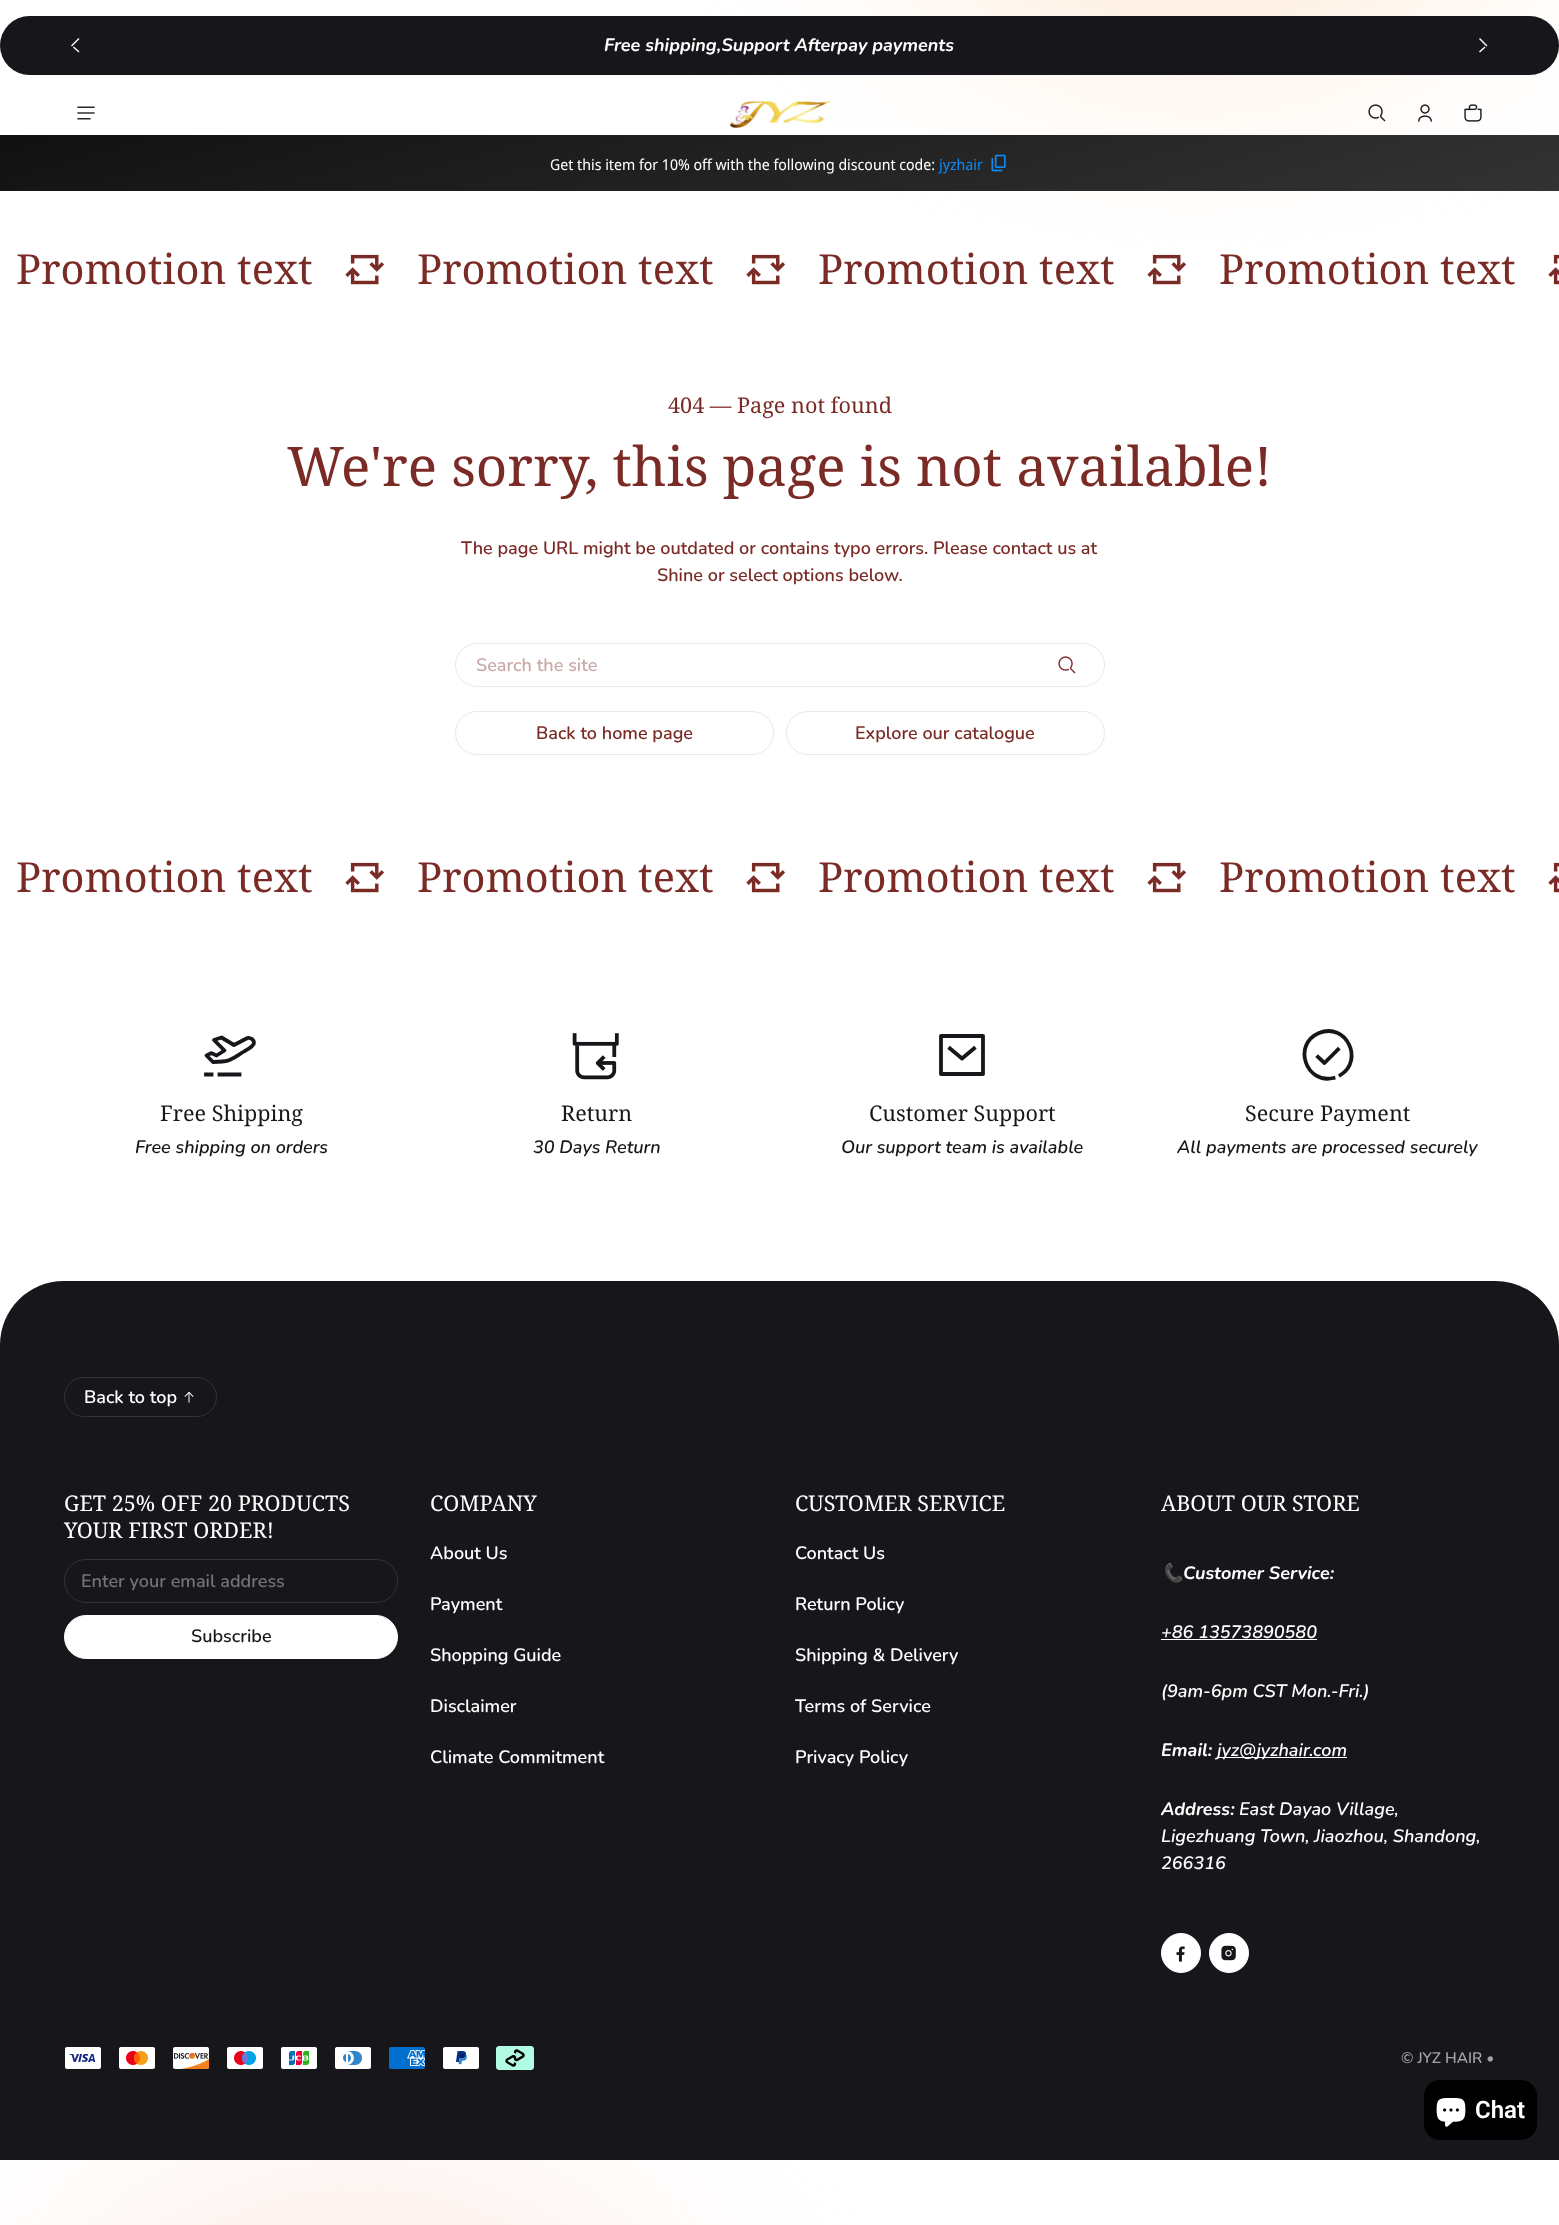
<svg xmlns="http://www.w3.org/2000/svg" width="1559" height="2225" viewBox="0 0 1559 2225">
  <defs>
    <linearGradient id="g1" gradientUnits="userSpaceOnUse" x1="713" y1="-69" x2="846" y2="395"><stop offset="0" stop-color="rgb(17,17,17)"/><stop offset="1" stop-color="rgb(51,51,51)"/></linearGradient>
  </defs>
  <rect width="100%" height="100%" fill="rgb(255,255,255)"/>
  <rect x="840" y="-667" width="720" height="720" rx="360" fill="rgb(255,233,213)" filter="blur(110px)"/>
  <rect x="1" y="2173" width="720" height="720" rx="360" fill="rgb(253,235,230)" filter="blur(110px)"/>
  <rect x="0" y="16" width="1559" height="59" rx="29.5" fill="rgb(23,22,26)"/>
  <path d="M78.5 51.5L74 47.5M72 45.5L78.5 39" fill="none" stroke="rgb(255,255,255)" stroke-width="1.4" stroke-linecap="square" stroke-linejoin="round"/>
  <text x="604" y="51" font-family="Nunito" font-size="18" font-weight="bold" font-style="italic" fill="rgb(255,255,255)">Free shipping,Support Afterpay payments</text>
  <path d="M1480 51.5L1484.5 47.5M1486.5 45.5L1480 39" fill="none" stroke="rgb(255,255,255)" stroke-width="1.4" stroke-linecap="square" stroke-linejoin="round"/>
  <image x="77" y="106" width="18" height="14" href="pic1.png"/>
  <image x="730" y="101" width="101" height="27" href="pic2.png"/>
  <image x="1368" y="104" width="18" height="18" href="pic3.png"/>
  <image x="1418" y="104" width="14" height="18" href="pic4.png"/>
  <image x="1464" y="104" width="18" height="18" href="pic5.png"/>
  <rect x="0" y="135" width="1559" height="56" fill="url(#g1)"/>
  <text x="550" y="170" font-family="Noto Sans Display" font-size="15" fill="rgb(255,255,255)">Get this item for 10% off with the following discount code:</text>
  <text x="939" y="170" font-family="Noto Sans Display" font-size="15" fill="rgb(13,139,244)">jyzhair</text>
  <image x="991" y="154" width="15" height="18" href="pic6.png"/>
  <text x="16" y="284" font-family="Noto Serif" font-size="41.5" fill="rgb(123,43,38)">Promotion text</text>
  <image x="345" y="254" width="39" height="31" href="pic7.png"/>
  <text x="417" y="284" font-family="Noto Serif" font-size="41.5" fill="rgb(123,43,38)">Promotion text</text>
  <image x="746" y="254" width="39" height="31" href="pic7.png"/>
  <text x="818" y="284" font-family="Noto Serif" font-size="41.5" fill="rgb(123,43,38)">Promotion text</text>
  <image x="1147" y="254" width="39" height="31" href="pic8.png"/>
  <text x="1219" y="284" font-family="Noto Serif" font-size="41.5" fill="rgb(123,43,38)">Promotion text</text>
  <image x="1548" y="254" width="11" height="31" href="pic9.png"/>
  <text x="668" y="413" font-family="Noto Serif" font-size="21.6" fill="rgb(123,43,38)">404 — Page not found</text>
  <text x="287" y="486" font-family="Noto Serif" font-size="54.6" fill="rgb(123,43,38)">We're sorry, this page is not available!</text>
  <g font-family="Nunito" font-size="18" font-weight="600" fill="rgb(123,43,38)">
    <text x="461" y="554">The page URL might be outdated or contains typo errors. Please contact us at</text>
    <text x="657" y="581">Shine or select options below.</text>
  </g>
  <rect x="455.5" y="643.5" width="649" height="43" rx="21.5" fill="none" stroke="rgb(239,230,229)"/>
  <text x="476" y="671" font-family="Nunito" font-size="18" font-weight="600" fill="rgb(202,170,168)">Search the site</text>
  <image x="1058" y="656" width="18" height="18" href="pic10.png"/>
  <rect x="455.5" y="711.5" width="318" height="43" rx="21.5" fill="none" stroke="rgb(239,230,229)"/>
  <text x="536" y="739" font-family="Nunito" font-size="18" font-weight="600" fill="rgb(123,43,38)">Back to home page</text>
  <rect x="786.5" y="711.5" width="318" height="43" rx="21.5" fill="none" stroke="rgb(239,230,229)"/>
  <text x="855" y="739" font-family="Nunito" font-size="18" font-weight="600" fill="rgb(123,43,38)">Explore our catalogue</text>
  <text x="16" y="892" font-family="Noto Serif" font-size="41.5" fill="rgb(123,43,38)">Promotion text</text>
  <image x="345" y="862" width="39" height="31" href="pic7.png"/>
  <text x="417" y="892" font-family="Noto Serif" font-size="41.5" fill="rgb(123,43,38)">Promotion text</text>
  <image x="746" y="862" width="39" height="31" href="pic7.png"/>
  <text x="818" y="892" font-family="Noto Serif" font-size="41.5" fill="rgb(123,43,38)">Promotion text</text>
  <image x="1147" y="862" width="39" height="31" href="pic7.png"/>
  <text x="1219" y="892" font-family="Noto Serif" font-size="41.5" fill="rgb(123,43,38)">Promotion text</text>
  <image x="1548" y="862" width="11" height="31" href="pic9.png"/>
  <path d="M239.5 1074.5H219.5M211.5 1074.5H206M213 1062L206.5 1055.5C212 1052.5 210.5 1052.5 216.5 1055.5L224.5 1050.5L214 1040L221.5 1037.5L234 1045L247.5 1038C249 1037.5 250.5 1038 252 1039C258.5 1044.5 247 1049.5 244 1051.5C228.5 1061 230.5 1061.5 213 1062Z" fill="none" stroke="rgb(23,22,26)" stroke-width="3.8" stroke-linecap="square" stroke-linejoin="round"/>
  <text x="160" y="1121" font-family="Noto Serif" font-size="21.6" fill="rgb(23,22,26)">Free Shipping</text>
  <text x="135" y="1153" font-family="Nunito" font-size="18" font-weight="600" font-style="italic" fill="rgb(23,22,26)">Free shipping on orders</text>
  <image x="572" y="1033" width="47" height="47" href="pic11.png"/>
  <text x="561" y="1121" font-family="Noto Serif" font-size="21.6" fill="rgb(23,22,26)">Return</text>
  <text x="533" y="1153" font-family="Nunito" font-size="18" font-weight="600" font-style="italic" fill="rgb(23,22,26)">30 Days Return</text>
  <path d="M974 1048.5L962 1058.5L950 1048.5M941 1036V1074H983V1036Z" fill="none" stroke="rgb(23,22,26)" stroke-width="3.8" stroke-linecap="square" stroke-linejoin="round"/>
  <text x="869" y="1121" font-family="Noto Serif" font-size="21.6" fill="rgb(23,22,26)">Customer Support</text>
  <text x="841" y="1153" font-family="Nunito" font-size="18" font-weight="600" font-style="italic" fill="rgb(23,22,26)">Our support team is available</text>
  <path d="M1338 1049.5L1324.5 1063L1318 1057" fill="none" stroke="rgb(23,22,26)" stroke-width="3.8" stroke-linecap="square" stroke-linejoin="round"/>
  <path d="M1333.5 1078C1306 1084.5 1292 1044.5 1319 1033C1346 1022 1364.5 1060 1340.5 1075" fill="none" stroke="rgb(23,22,26)" stroke-width="3.8" stroke-linecap="square"/>
  <text x="1245" y="1121" font-family="Noto Serif" font-size="21.6" fill="rgb(23,22,26)">Secure Payment</text>
  <text x="1177" y="1153" font-family="Nunito" font-size="18" font-weight="600" font-style="italic" fill="rgb(23,22,26)">All payments are processed securely</text>
  <path d="M64 1281H1495C1530.5 1281 1559 1309.5 1559 1345V2160H0V1345C0 1309.5 28.5 1281 64 1281Z" fill="rgb(23,22,26)"/>
  <rect x="64.5" y="1377.5" width="152" height="39" rx="19.5" fill="none" stroke="rgb(51,50,53)"/>
  <text x="84" y="1403" font-family="Nunito" font-size="18" font-weight="600" fill="rgb(255,255,255)">Back to top</text>
  <image x="184" y="1391" width="10" height="12" href="pic12.png"/>
  <g font-family="Noto Serif" font-size="21.6" fill="rgb(255,255,255)">
    <text>
      <tspan x="64" y="1511">GET 25% OFF 20 PRODUCTS</tspan>
      <tspan x="64" y="1538">YOUR FIRST ORDER!</tspan>
    </text>
  </g>
  <rect x="64.5" y="1559.5" width="333" height="43" rx="21.5" fill="none" stroke="rgb(51,50,53)"/>
  <text x="81" y="1587" font-family="Nunito" font-size="18" font-weight="600" fill="rgb(116,115,118)">Enter your email address</text>
  <rect x="64.5" y="1615.5" width="333" height="43" rx="21.5" fill="rgb(255,255,255)" stroke="rgb(255,255,255)"/>
  <text x="191" y="1642" font-family="Nunito" font-size="18" font-weight="600" fill="rgb(23,22,26)">Subscribe</text>
  <text x="430" y="1511" font-family="Noto Serif" font-size="21.6" fill="rgb(255,255,255)">COMPANY</text>
  <g font-family="Nunito" font-size="18" font-weight="600" fill="rgb(255,255,255)">
    <text x="430" y="1559">About Us</text>
    <text x="430" y="1610">Payment</text>
    <text x="430" y="1661">Shopping Guide</text>
    <text x="430" y="1712">Disclaimer</text>
    <text x="430" y="1763">Climate Commitment</text>
  </g>
  <text x="795" y="1511" font-family="Noto Serif" font-size="21.6" fill="rgb(255,255,255)">CUSTOMER SERVICE</text>
  <g font-family="Nunito" font-size="18" font-weight="600" fill="rgb(255,255,255)">
    <text x="795" y="1559">Contact Us</text>
    <text x="795" y="1610">Return Policy</text>
    <text x="795" y="1661">Shipping &amp; Delivery</text>
    <text x="795" y="1712">Terms of Service</text>
    <text x="795" y="1763">Privacy Policy</text>
  </g>
  <text x="1161" y="1511" font-family="Noto Serif" font-size="21.6" fill="rgb(255,255,255)">ABOUT OUR STORE</text>
  <text x="1161" y="1579" font-family="Noto Color Emoji" font-size="18" font-weight="bold" font-style="italic" fill="rgb(255,255,255)">📞</text>
  <text x="1183" y="1579" font-family="Nunito" font-size="18" font-weight="bold" font-style="italic" fill="rgb(255,255,255)">Customer Service:</text>
  <text x="1161" y="1638" font-family="Nunito" font-size="18" font-weight="600" font-style="italic" fill="rgb(255,255,255)">+86 13573890580</text>
  <rect x="1161" y="1639" width="156" height="1" fill="rgb(255,255,255)"/>
  <text x="1161" y="1697" font-family="Nunito" font-size="18" font-weight="600" font-style="italic" fill="rgb(255,255,255)">(9am-6pm CST Mon.-Fri.)</text>
  <text x="1161" y="1756" font-family="Nunito" font-size="18" font-weight="bold" font-style="italic" fill="rgb(255,255,255)">Email:</text>
  <rect x="1217" y="1757" width="130" height="1" fill="rgb(255,255,255)"/>
  <text x="1217" y="1756" font-family="Nunito" font-size="18" font-weight="600" font-style="italic" fill="rgb(255,255,255)">jyz@jyzhair.com</text>
  <text x="1161" y="1815" font-family="Nunito" font-size="18" font-weight="bold" font-style="italic" fill="rgb(255,255,255)">Address:</text>
  <g font-family="Nunito" font-size="18" font-weight="600" font-style="italic" fill="rgb(255,255,255)">
    <text x="1239" y="1815">East Dayao Village,</text>
    <text>
      <tspan x="1161" y="1842">Ligezhuang Town, Jiaozhou, Shandong,</tspan>
      <tspan x="1161" y="1869">266316</tspan>
    </text>
  </g>
  <circle cx="1181" cy="1953" r="19.5" fill="rgb(255,255,255)" stroke="rgb(255,255,255)"/>
  <image x="1176" y="1946" width="9" height="16" href="pic13.png"/>
  <circle cx="1229" cy="1953" r="19.5" fill="rgb(255,255,255)" stroke="rgb(255,255,255)"/>
  <image x="1221" y="1945" width="15" height="16" href="pic14.png"/>
  <image x="65" y="2047" width="36" height="22" href="pic15.png"/>
  <image x="119" y="2047" width="36" height="22" href="pic16.png"/>
  <image x="173" y="2047" width="36" height="22" href="pic17.png"/>
  <image x="227" y="2047" width="36" height="22" href="pic18.png"/>
  <image x="281" y="2047" width="36" height="22" href="pic19.png"/>
  <image x="335" y="2047" width="36" height="22" href="pic20.png"/>
  <image x="389" y="2047" width="36" height="22" href="pic21.png"/>
  <image x="443" y="2047" width="36" height="22" href="pic22.png"/>
  <image x="496" y="2046" width="38" height="24" href="pic23.png"/>
  <text x="1401" y="2063" font-family="Nunito" font-size="15.25" font-weight="600" fill="rgb(162,162,163)">© JYZ HAIR •</text>
  <rect x="1424" y="2080" width="113" height="60" rx="16" fill="rgb(0,0,0)"/>
  <image x="1436" y="2098" width="30" height="29" href="pic24.png"/>
  <text x="1475" y="2118" font-family="Roboto" font-size="24" font-weight="600" fill="rgb(255,255,255)">Chat</text>
</svg>
